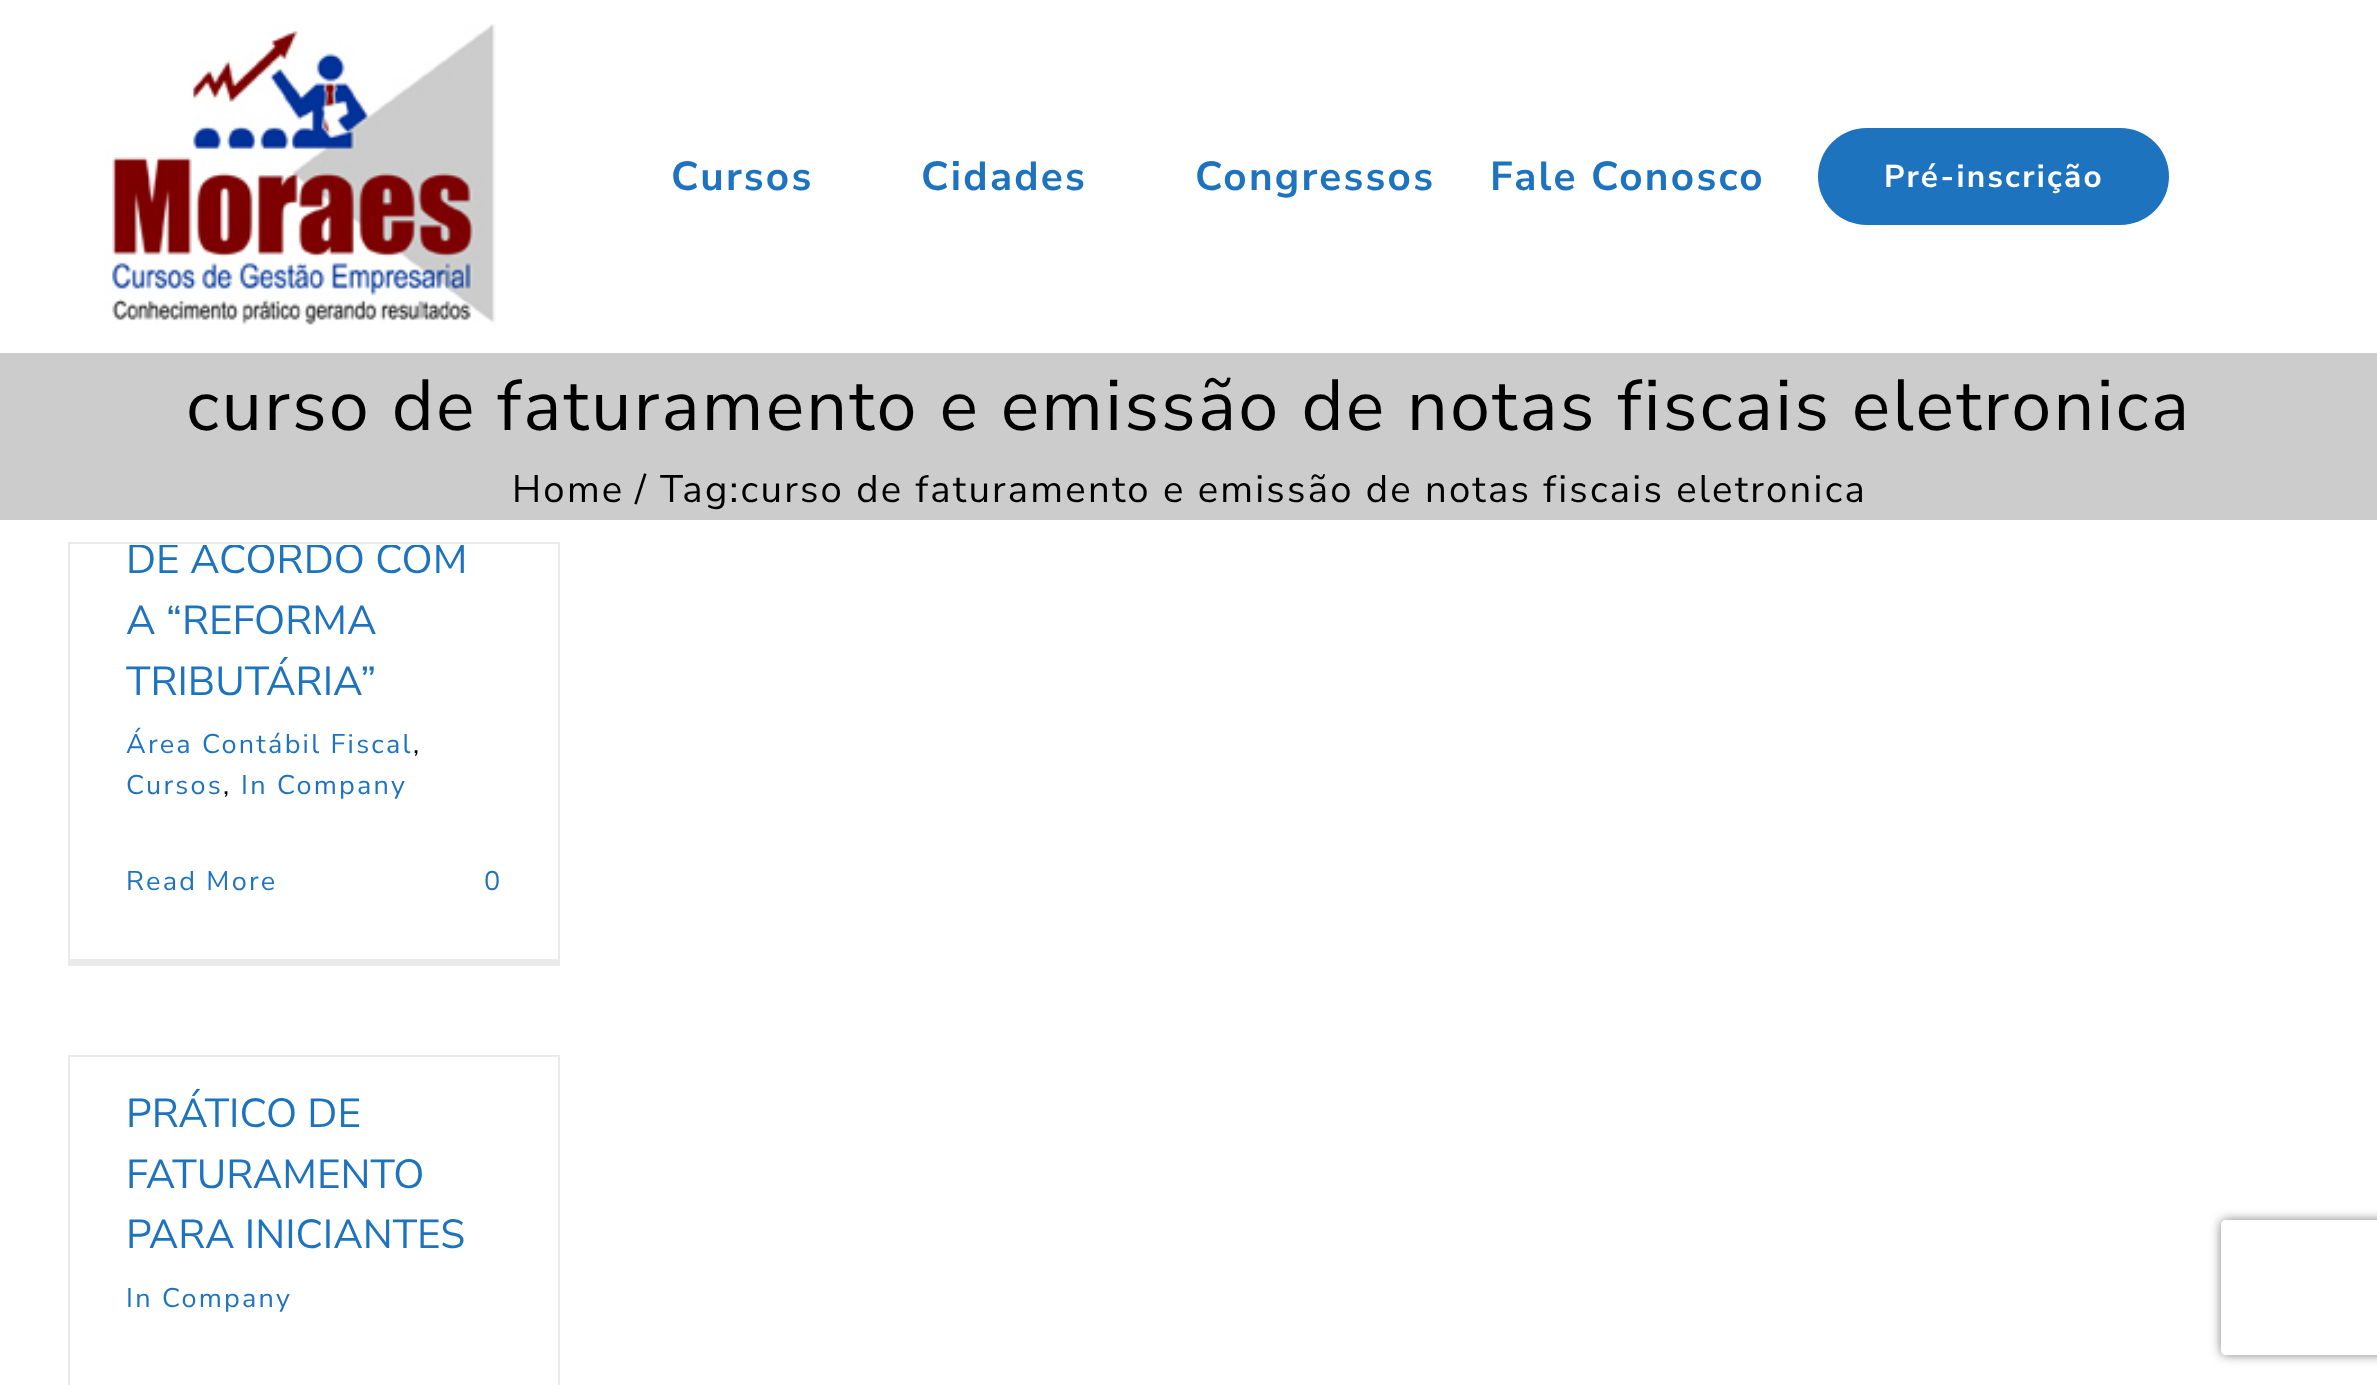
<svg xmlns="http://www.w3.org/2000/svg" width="2377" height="1385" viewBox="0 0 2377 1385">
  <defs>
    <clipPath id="clip1"><rect x="70" y="545" width="488" height="414"/></clipPath>
    <clipPath id="clip2"><path d="M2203 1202H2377V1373H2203ZM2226 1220H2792C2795 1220 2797 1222 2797 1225V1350C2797 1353 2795 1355 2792 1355H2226C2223 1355 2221 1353 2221 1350V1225C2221 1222 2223 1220 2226 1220Z" clip-rule="evenodd"/></clipPath>
  </defs>
  <rect width="100%" height="100%" fill="rgb(255,255,255)"/>
  <image x="104" y="24" width="392" height="301" href="pic1.png"/>
  <g font-family="Nunito Sans" font-size="40.5" font-weight="bold" letter-spacing="2.25" fill="rgb(30,115,190)">
    <text x="671" y="190">Cursos</text>
    <text x="921" y="190">Cidades</text>
    <text x="1195" y="190">Congressos</text>
    <text x="1490" y="190">Fale Conosco</text>
  </g>
  <rect x="1818" y="128" width="351" height="97" rx="48.5" fill="rgb(30,115,190)"/>
  <text x="1884" y="187" font-family="Nunito Sans" font-size="31.5" font-weight="bold" letter-spacing="2.25" fill="rgb(255,255,255)">Pré-inscrição</text>
  <rect x="0" y="353" width="2377" height="167" fill="rgb(204,204,204)"/>
  <text x="186" y="430" font-family="Nunito Sans" font-size="72" letter-spacing="2.25" fill="rgb(0,0,0)">curso de faturamento e emissão de notas fiscais eletronica</text>
  <g font-family="Nunito Sans" font-size="38.25" letter-spacing="2.25" fill="rgb(0,0,0)">
    <text x="512" y="502">Home</text>
    <text x="635" y="502">/</text>
    <text x="660" y="502">Tag:curso de faturamento e emissão de notas fiscais eletronica</text>
  </g>
  <rect x="68" y="542" width="492" height="2" fill="rgb(235,234,234)"/>
  <rect x="558" y="542" width="2" height="423" fill="rgb(235,234,234)"/>
  <rect x="68" y="959" width="492" height="7" fill="rgb(235,234,234)"/>
  <rect x="68" y="542" width="2" height="423" fill="rgb(235,234,234)"/>
  <g clip-path="url(#clip1)">
    <text x="126" y="573" font-family="Nunito Sans" font-size="40.5" fill="rgb(30,115,190)">DE ACORDO COM</text>
  </g>
  <g font-family="Nunito Sans" font-size="40.5" fill="rgb(30,115,190)">
    <text>
      <tspan x="126" y="634">A “REFORMA</tspan>
      <tspan x="126" y="695">TRIBUTÁRIA”</tspan>
    </text>
  </g>
  <text x="126" y="753" font-family="Nunito Sans" font-size="27" letter-spacing="2.25" fill="rgb(30,115,190)">Área Contábil Fiscal</text>
  <text x="413" y="753" font-family="Nunito Sans" font-size="27" letter-spacing="2.25" fill="rgb(0,0,0)">,</text>
  <text x="126" y="794" font-family="Nunito Sans" font-size="27" letter-spacing="2.25" fill="rgb(30,115,190)">Cursos</text>
  <text x="223" y="794" font-family="Nunito Sans" font-size="27" letter-spacing="2.25" fill="rgb(0,0,0)">,</text>
  <g font-family="Nunito Sans" font-size="27" letter-spacing="2.25" fill="rgb(30,115,190)">
    <text x="241" y="794">In Company</text>
    <text x="126" y="890">Read More</text>
    <text x="484" y="890">0</text>
  </g>
  <rect x="68" y="1055" width="492" height="2" fill="rgb(235,234,234)"/>
  <rect x="558" y="1055" width="2" height="330" fill="rgb(235,234,234)"/>
  <rect x="68" y="1055" width="2" height="330" fill="rgb(235,234,234)"/>
  <g font-family="Nunito Sans" font-size="40.5" fill="rgb(30,115,190)">
    <text>
      <tspan x="126" y="1127">PRÁTICO DE</tspan>
      <tspan x="126" y="1188">FATURAMENTO</tspan>
      <tspan x="126" y="1248">PARA INICIANTES</tspan>
    </text>
  </g>
  <text x="126" y="1307" font-family="Nunito Sans" font-size="27" letter-spacing="2.25" fill="rgb(30,115,190)">In Company</text>
  <g clip-path="url(#clip2)">
    <rect x="2221" y="1220" width="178" height="135" rx="5" fill="rgb(128,128,128)" filter="blur(5.5px)"/>
  </g>
</svg>
